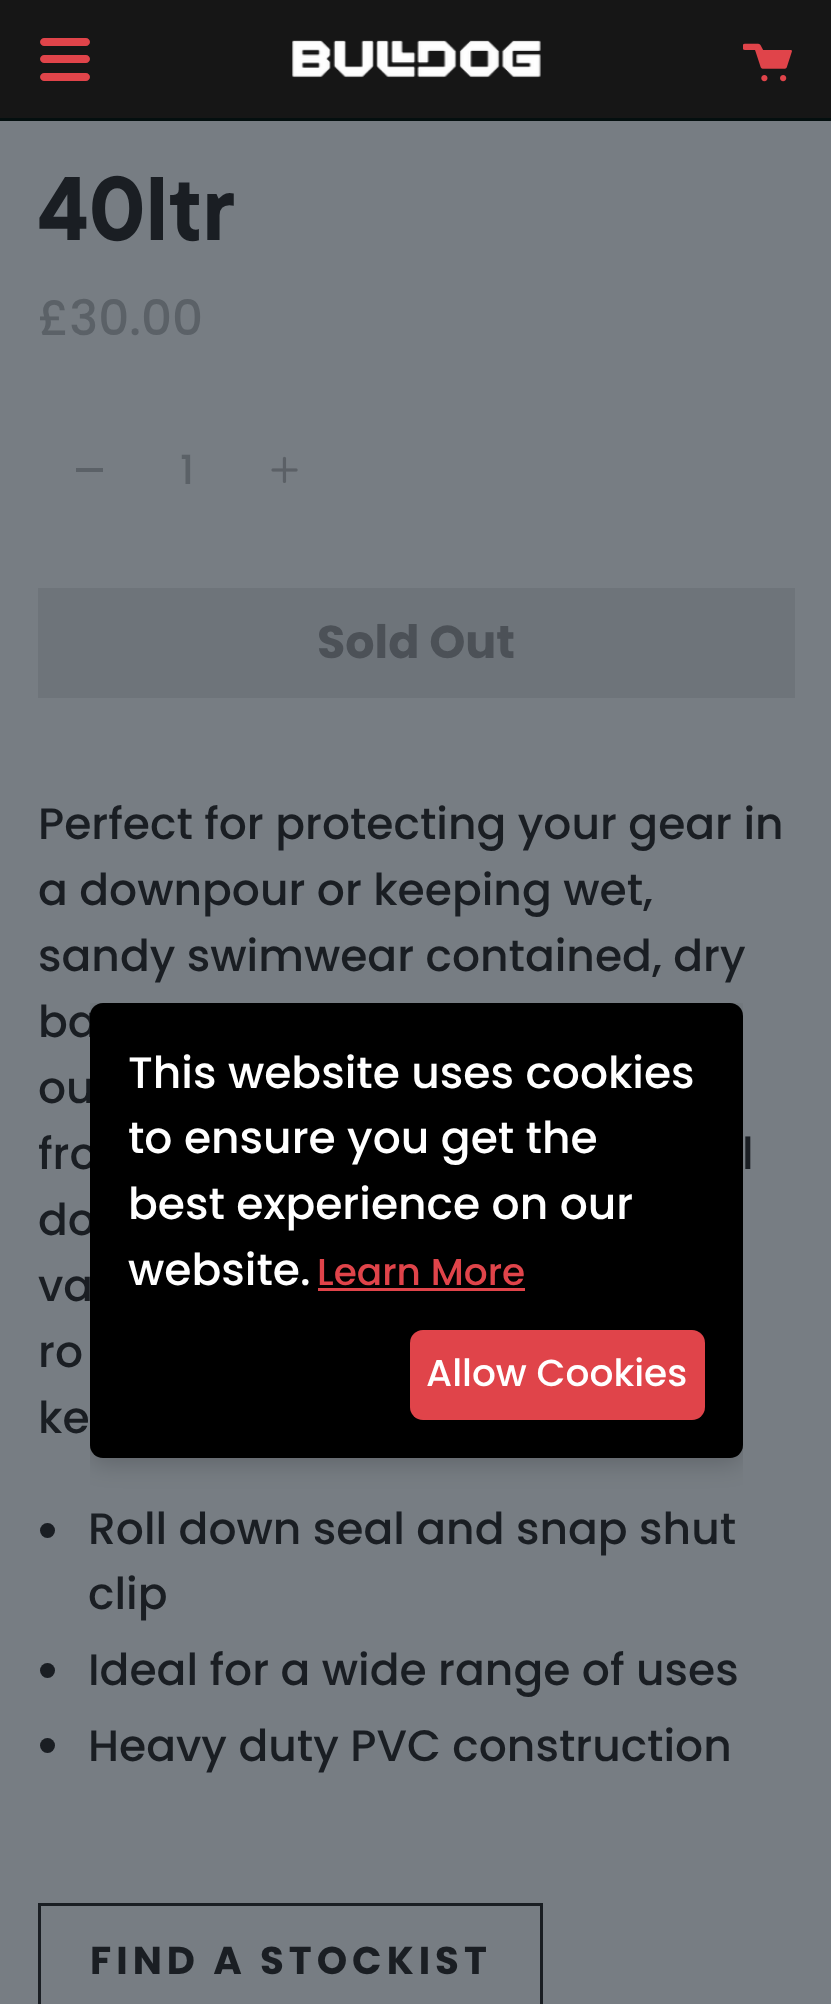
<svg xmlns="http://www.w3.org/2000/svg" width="831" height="2004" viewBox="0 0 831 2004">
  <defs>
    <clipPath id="clip1"><rect x="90" y="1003" width="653" height="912"/></clipPath>
  </defs>
  <rect width="100%" height="100%" fill="rgb(119,125,131)"/>
  <rect x="0" y="118" width="831" height="3" fill="rgb(4,15,15)"/>
  <rect x="0" y="0" width="831" height="118" fill="rgb(22,22,22)"/>
  <path d="M44 38H83V46H44C42 46 40 44 40 42C40 40 42 38 44 38Z" fill="rgb(224,68,74)"/>
  <path d="M48 38H86C88 38 90 40 90 42C90 44 88 46 86 46H48Z" fill="rgb(224,68,74)"/>
  <path d="M44 55H83V63H44C42 63 40 61 40 59C40 57 42 55 44 55Z" fill="rgb(224,68,74)"/>
  <path d="M48 55H86C88 55 90 57 90 59C90 61 88 63 86 63H48Z" fill="rgb(224,68,74)"/>
  <path d="M44 73H83V81H44C42 81 40 79 40 77C40 75 42 73 44 73Z" fill="rgb(224,68,74)"/>
  <path d="M48 73H86C88 73 90 75 90 77C90 79 88 81 86 81H48Z" fill="rgb(224,68,74)"/>
  <image x="292" y="40" width="249" height="38" href="pic1.png"/>
  <image x="743" y="43" width="49" height="39" href="pic2.png"/>
  <text x="38" y="240" font-family="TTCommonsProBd" font-size="90" font-weight="bold" fill="rgb(26,30,35)">40ltr</text>
  <text x="38" y="335" font-family="Poppins" font-size="48.5" font-weight="500" fill="rgb(91,97,103)">£30.00</text>
  <rect x="76" y="468" width="27" height="4" fill="rgb(91,97,103)"/>
  <text x="180" y="484" font-family="Poppins" font-size="40" font-weight="500" fill="rgb(91,97,103)">1</text>
  <image x="271" y="456" width="27" height="27" href="pic3.png"/>
  <rect x="38" y="588" width="757" height="110" fill="rgb(110,116,122)"/>
  <text x="317" y="658" font-family="Poppins" font-size="46" font-weight="bold" fill="rgb(76,81,87)">Sold Out</text>
  <g font-family="Poppins" font-size="44" font-weight="500" fill="rgb(26,30,35)">
    <text>
      <tspan x="38" y="839">Perfect for protecting your gear in</tspan>
      <tspan x="38" y="905">a downpour or keeping wet,</tspan>
      <tspan x="38" y="971">sandy swimwear contained, dry</tspan>
      <tspan x="38" y="1037">ba</tspan>
      <tspan x="38" y="1103">ou</tspan>
      <tspan x="38" y="1169">fro</tspan>
    </text>
    <text x="742" y="1169">l</text>
    <text>
      <tspan x="38" y="1235">do</tspan>
      <tspan x="38" y="1301">va</tspan>
      <tspan x="38" y="1367">ro</tspan>
      <tspan x="38" y="1433">ke</tspan>
    </text>
  </g>
  <circle cx="47.5" cy="1530.5" r="7.5" fill="rgb(26,30,35)"/>
  <g font-family="Poppins" font-size="44" font-weight="500" fill="rgb(26,30,35)">
    <text>
      <tspan x="88" y="1544">Roll down seal and snap shut</tspan>
      <tspan x="88" y="1609">clip</tspan>
    </text>
  </g>
  <circle cx="47.5" cy="1670.5" r="7.5" fill="rgb(26,30,35)"/>
  <text x="88" y="1685" font-family="Poppins" font-size="44" font-weight="500" fill="rgb(26,30,35)">Ideal for a wide range of uses</text>
  <circle cx="47.5" cy="1745.5" r="7.5" fill="rgb(26,30,35)"/>
  <text x="88" y="1761" font-family="Poppins" font-size="44" font-weight="500" fill="rgb(26,30,35)">Heavy duty PVC construction</text>
  <rect x="39.5" y="1904.5" width="502" height="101" fill="none" stroke="rgb(26,30,35)" stroke-width="3"/>
  <text x="90" y="1974" font-family="Poppins" font-size="38.75" font-weight="bold" letter-spacing="5" fill="rgb(26,30,35)">FIND A STOCKIST</text>
  <g clip-path="url(#clip1)">
    <rect x="90" y="1008" width="653" height="455" rx="13" fill="rgba(0,0,0,0.2)" filter="blur(12.5px)"/>
  </g>
  <rect x="90" y="1003" width="653" height="455" rx="13" fill="rgb(0,0,0)"/>
  <g font-family="Poppins" font-size="44" font-weight="500" fill="rgb(255,255,255)">
    <text>
      <tspan x="128" y="1088">This website uses cookies</tspan>
      <tspan x="128" y="1153">to ensure you get the</tspan>
      <tspan x="128" y="1219">best experience on our</tspan>
      <tspan x="128" y="1285">website.</tspan>
    </text>
  </g>
  <text x="317" y="1285" font-family="Poppins" font-size="37.5" font-weight="500" fill="rgb(224,68,74)">Learn More</text>
  <rect x="318" y="1288" width="207" height="3" fill="rgb(224,68,74)"/>
  <rect x="410" y="1330" width="295" height="90" rx="13" fill="rgb(224,68,74)"/>
  <text x="426" y="1386" font-family="Poppins" font-size="37.5" font-weight="500" fill="rgb(255,255,255)">Allow Cookies</text>
</svg>
